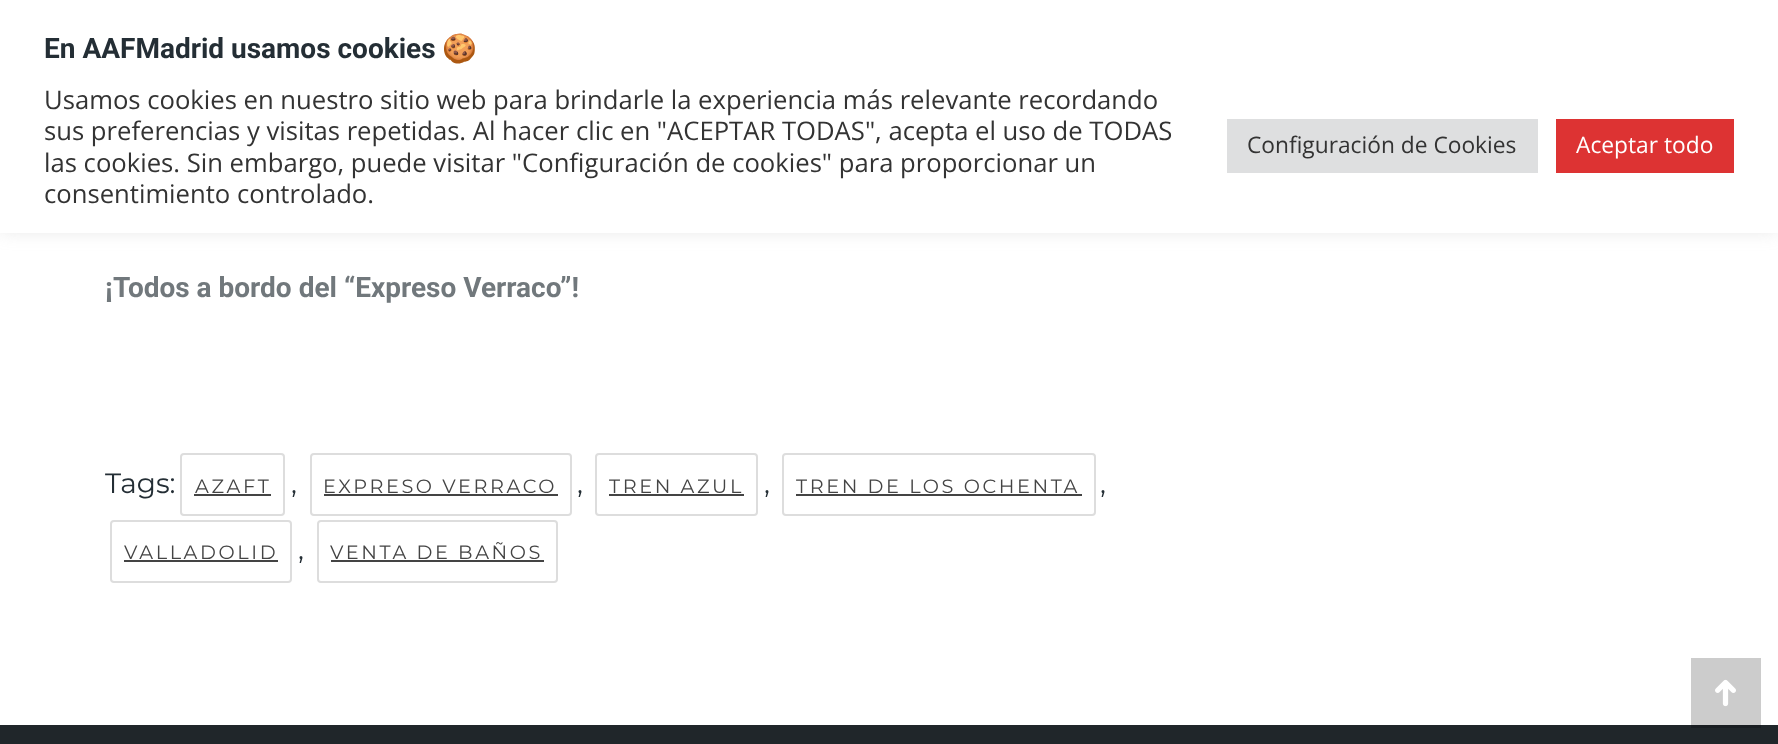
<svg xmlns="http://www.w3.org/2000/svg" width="1778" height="744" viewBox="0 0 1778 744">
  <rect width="100%" height="100%" fill="rgb(255,255,255)"/>
  <rect x="0" y="-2" width="1778" height="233" fill="rgba(172,171,171,0.3)" filter="blur(9px)"/>
  <rect x="0" y="0" width="1778" height="233" fill="rgb(255,255,255)"/>
  <text x="44" y="58" font-family="Roboto" font-size="28" font-weight="bold" fill="rgb(36,46,53)">En AAFMadrid usamos cookies</text>
  <text x="442" y="58" font-family="Noto Color Emoji" font-size="28" font-weight="bold" fill="rgb(36,46,53)">🍪</text>
  <g font-family="Open Sans" font-size="25.65" fill="rgb(51,51,51)">
    <text>
      <tspan x="44" y="109">Usamos cookies en nuestro sitio web para brindarle la experiencia más relevante recordando</tspan>
      <tspan x="44" y="140">sus preferencias y visitas repetidas. Al hacer clic en "ACEPTAR TODAS", acepta el uso de TODAS</tspan>
      <tspan x="44" y="172">las cookies. Sin embargo, puede visitar "Configuración de cookies" para proporcionar un</tspan>
      <tspan x="44" y="203">consentimiento controlado.</tspan>
    </text>
  </g>
  <rect x="1227" y="119" width="311" height="54" fill="rgb(222,223,224)"/>
  <text x="1247" y="153" font-family="Open Sans" font-size="22.75" fill="rgb(51,51,51)">Configuración de Cookies</text>
  <rect x="1556" y="119" width="178" height="54" fill="rgb(221,51,51)"/>
  <text x="1576" y="153" font-family="Open Sans" font-size="22.75" fill="rgb(255,255,255)">Aceptar todo</text>
  <rect x="1691" y="658" width="70" height="67" fill="rgb(204,204,204)"/>
  <text x="105" y="297" font-family="Roboto" font-size="28" font-weight="bold" fill="rgb(113,120,124)">¡Todos a bordo del “Expreso Verraco”!</text>
  <text x="105" y="493" font-family="Montserrat" font-size="28" fill="rgb(36,46,53)">Tags:</text>
  <rect x="181" y="454" width="103" height="61" rx="3" fill="none" stroke="rgb(221,221,221)" stroke-width="2"/>
  <text x="195" y="493" font-family="Montserrat" font-size="19.25" letter-spacing="2.6" fill="rgb(68,68,68)">AZAFT</text>
  <rect x="194" y="494" width="77" height="2" fill="rgb(68,68,68)"/>
  <text x="291" y="493" font-family="Montserrat" font-size="28" fill="rgb(36,46,53)">,</text>
  <rect x="311" y="454" width="260" height="61" rx="3" fill="none" stroke="rgb(221,221,221)" stroke-width="2"/>
  <text x="323" y="493" font-family="Montserrat" font-size="19.25" letter-spacing="2.6" fill="rgb(68,68,68)">EXPRESO VERRACO</text>
  <rect x="324" y="494" width="234" height="2" fill="rgb(68,68,68)"/>
  <text x="577" y="493" font-family="Montserrat" font-size="28" fill="rgb(36,46,53)">,</text>
  <rect x="596" y="454" width="161" height="61" rx="3" fill="none" stroke="rgb(221,221,221)" stroke-width="2"/>
  <text x="609" y="493" font-family="Montserrat" font-size="19.25" letter-spacing="2.6" fill="rgb(68,68,68)">TREN AZUL</text>
  <rect x="609" y="494" width="135" height="2" fill="rgb(68,68,68)"/>
  <text x="764" y="493" font-family="Montserrat" font-size="28" fill="rgb(36,46,53)">,</text>
  <rect x="783" y="454" width="312" height="61" rx="3" fill="none" stroke="rgb(221,221,221)" stroke-width="2"/>
  <text x="796" y="493" font-family="Montserrat" font-size="19.25" letter-spacing="2.6" fill="rgb(68,68,68)">TREN DE LOS OCHENTA</text>
  <rect x="796" y="494" width="286" height="2" fill="rgb(68,68,68)"/>
  <text x="1100" y="493" font-family="Montserrat" font-size="28" fill="rgb(36,46,53)">,</text>
  <rect x="111" y="521" width="180" height="61" rx="3" fill="none" stroke="rgb(221,221,221)" stroke-width="2"/>
  <text x="124" y="559" font-family="Montserrat" font-size="19.25" letter-spacing="2.6" fill="rgb(68,68,68)">VALLADOLID</text>
  <rect x="124" y="560" width="154" height="2" fill="rgb(68,68,68)"/>
  <text x="298" y="559" font-family="Montserrat" font-size="28" fill="rgb(36,46,53)">,</text>
  <rect x="318" y="521" width="239" height="61" rx="3" fill="none" stroke="rgb(221,221,221)" stroke-width="2"/>
  <text x="330" y="559" font-family="Montserrat" font-size="19.25" letter-spacing="2.6" fill="rgb(68,68,68)">VENTA DE BAÑOS</text>
  <rect x="331" y="560" width="213" height="2" fill="rgb(68,68,68)"/>
  <image x="1715" y="679" width="21" height="28" href="pic1.png"/>
  <rect x="0" y="725" width="1778" height="19" fill="rgb(32,38,42)"/>
  <rect x="1691" y="725" width="70" height="3" fill="rgb(26,30,34)"/>
</svg>
